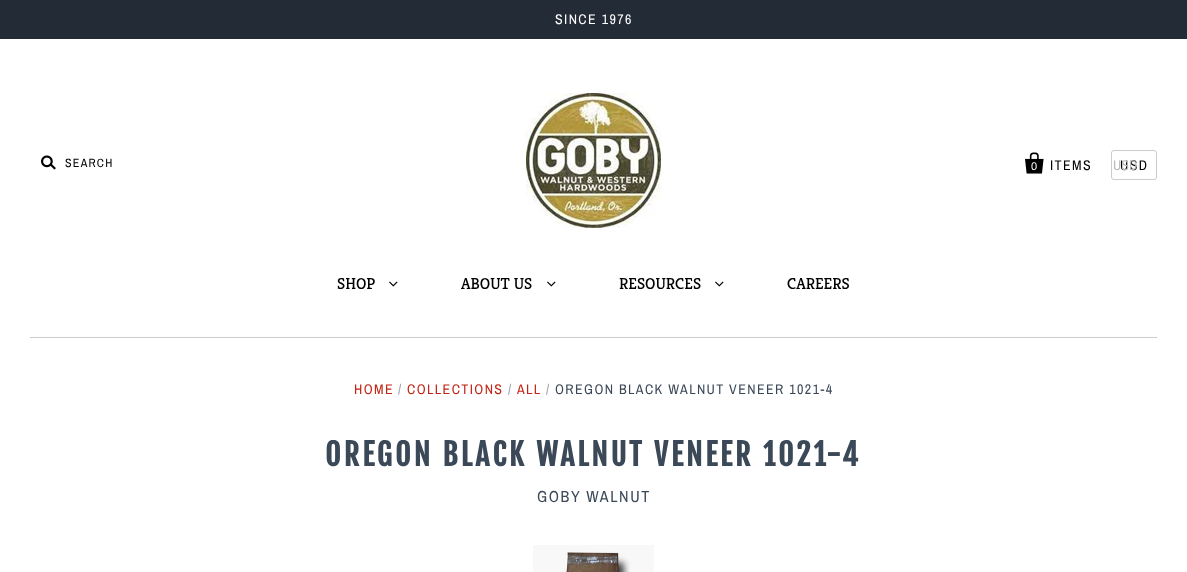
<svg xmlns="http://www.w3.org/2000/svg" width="1187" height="572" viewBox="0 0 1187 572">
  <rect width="100%" height="100%" fill="rgb(255,255,255)"/>
  <rect x="0" y="0" width="1187" height="39" fill="rgb(35,43,54)"/>
  <text x="555" y="24" font-family="Archivo Narrow" font-size="14" letter-spacing="1.4" fill="rgb(255,255,255)">SINCE 1976</text>
  <rect x="30" y="337" width="1127" height="1" fill="rgb(204,204,204)"/>
  <image x="41" y="155" width="15" height="15" href="pic1.png"/>
  <text x="65" y="167" font-family="Archivo Narrow" font-size="12" letter-spacing="1.25" fill="rgb(0,0,0)">SEARCH</text>
  <image x="526" y="93" width="135" height="135" href="pic2.png"/>
  <image x="1025" y="152" width="19" height="22" href="pic3.png"/>
  <text x="1050" y="170" font-family="Archivo Narrow" font-size="14" letter-spacing="1.4" fill="rgb(0,0,0)">ITEMS</text>
  <text x="1031" y="170" font-family="Liberation Sans" font-size="11" letter-spacing="1.4" fill="rgb(255,255,255)">0</text>
  <rect x="1111.5" y="150.5" width="45" height="29" rx="2.5" fill="none" stroke="rgb(204,204,204)"/>
  <text x="1120" y="170" font-family="Archivo Narrow" font-size="14" letter-spacing="1.4" fill="rgb(0,0,0)">USD</text>
  <text x="1113" y="170" font-family="Archivo Narrow" font-size="14" fill="rgb(187,187,187)">USD</text>
  <text x="337" y="289" font-family="Kreon" font-size="16" fill="rgb(0,0,0)">SHOP</text>
  <image x="389" y="281" width="9" height="6" href="pic4.png"/>
  <text x="461" y="289" font-family="Kreon" font-size="16" fill="rgb(0,0,0)">ABOUT US</text>
  <image x="547" y="281" width="9" height="6" href="pic4.png"/>
  <text x="619" y="289" font-family="Kreon" font-size="16" fill="rgb(0,0,0)">RESOURCES</text>
  <image x="715" y="281" width="9" height="6" href="pic4.png"/>
  <text x="787" y="289" font-family="Kreon" font-size="16" fill="rgb(0,0,0)">CAREERS</text>
  <text x="354" y="394" font-family="Archivo Narrow" font-size="14" letter-spacing="1.4" fill="rgb(193,37,21)">HOME</text>
  <text x="398" y="394" font-family="Archivo Narrow" font-size="14" letter-spacing="1.4" fill="rgb(157,163,171)">/</text>
  <text x="407" y="394" font-family="Archivo Narrow" font-size="14" letter-spacing="1.4" fill="rgb(193,37,21)">COLLECTIONS</text>
  <text x="508" y="394" font-family="Archivo Narrow" font-size="14" letter-spacing="1.4" fill="rgb(157,163,171)">/</text>
  <text x="517" y="394" font-family="Archivo Narrow" font-size="14" letter-spacing="1.4" fill="rgb(193,37,21)">ALL</text>
  <text x="546" y="394" font-family="Archivo Narrow" font-size="14" letter-spacing="1.4" fill="rgb(157,163,171)">/</text>
  <text x="555" y="394" font-family="Archivo Narrow" font-size="14" letter-spacing="1.4" fill="rgb(59,72,88)">OREGON BLACK WALNUT VENEER 1021-4</text>
  <text x="325" y="466" font-family="Fjalla One" font-size="30" font-weight="bold" letter-spacing="3" fill="rgb(59,72,88)">OREGON BLACK WALNUT VENEER 1021-4</text>
  <text x="537" y="502" font-family="Archivo Narrow" font-size="16" letter-spacing="1.6" fill="rgb(59,72,88)">GOBY WALNUT</text>
  <image x="533" y="545" width="121" height="27" href="pic5.png"/>
</svg>
